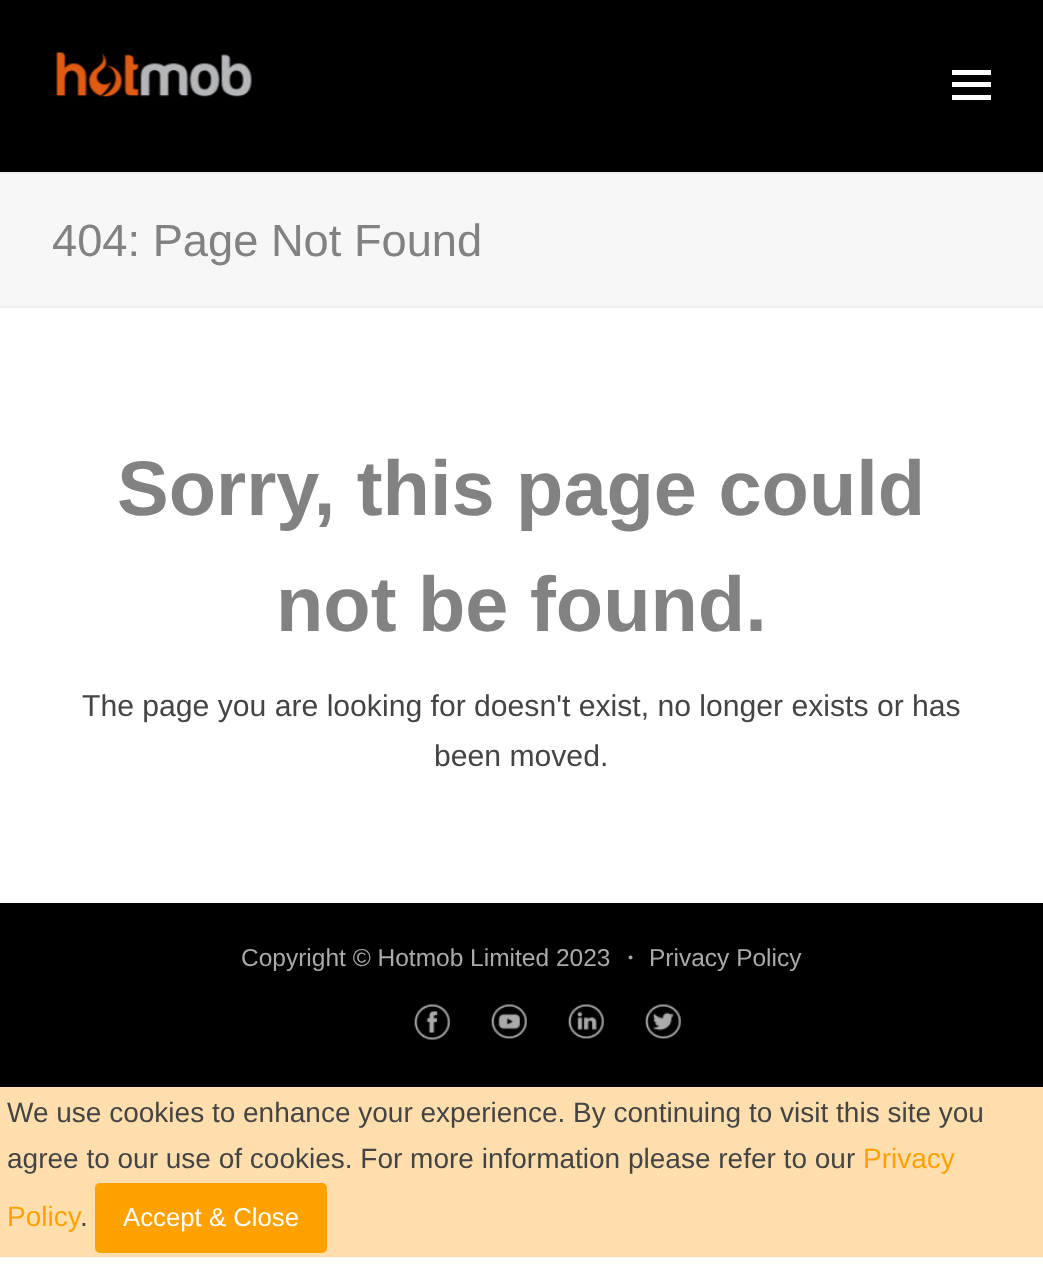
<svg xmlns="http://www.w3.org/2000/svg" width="1043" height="1279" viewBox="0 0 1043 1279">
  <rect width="100%" height="100%" fill="rgb(255,255,255)"/>
  <rect x="0" y="0" width="1043" height="172" fill="rgb(0,0,0)"/>
  <image x="56" y="52" width="196" height="45" href="pic1.png"/>
  <rect x="952" y="82" width="39" height="5" fill="rgb(255,255,255)"/>
  <rect x="952" y="70" width="39" height="5" fill="rgb(255,255,255)"/>
  <rect x="952" y="95" width="39" height="5" fill="rgb(255,255,255)"/>
  <rect x="0" y="174" width="1043" height="132" fill="rgb(247,247,247)"/>
  <rect x="0" y="172" width="1043" height="2" fill="rgb(238,238,238)"/>
  <rect x="0" y="306" width="1043" height="2" fill="rgb(238,238,238)"/>
  <text x="52" y="256" font-family="Liberation Sans" font-size="45.25" fill="rgb(130,130,130)">404: Page Not Found</text>
  <g font-family="Liberation Sans" font-size="77.5" font-weight="bold" fill="rgb(130,130,130)">
    <text x="117" y="515">Sorry, this page could</text>
    <text x="276" y="631">not be found.</text>
  </g>
  <g font-family="Liberation Sans" font-size="30.15" fill="rgb(68,68,68)">
    <text x="82" y="716">The page you are looking for doesn't exist, no longer exists or has</text>
    <text x="434" y="766">been moved.</text>
  </g>
  <rect x="0" y="903" width="1043" height="184" fill="rgb(0,0,0)"/>
  <text x="241" y="966" font-family="Liberation Sans" font-size="24.5" fill="rgb(170,170,170)">Copyright © Hotmob Limited 2023</text>
  <text x="618" y="966" font-family="WenQuanYi Zen Hei" font-size="24.5" font-weight="500" fill="rgb(170,170,170)">・</text>
  <text x="649" y="966" font-family="Liberation Sans" font-size="24.5" fill="rgb(170,170,170)">Privacy Policy</text>
  <image x="414" y="1004" width="36" height="36" href="pic2.png"/>
  <image x="491" y="1004" width="36" height="35" href="pic3.png"/>
  <image x="568" y="1004" width="36" height="35" href="pic4.png"/>
  <image x="645" y="1004" width="36" height="35" href="pic5.png"/>
  <rect x="0" y="1087" width="1043" height="170" fill="rgb(255,222,173)"/>
  <g font-family="Liberation Sans" font-size="28" fill="rgb(68,68,68)">
    <text>
      <tspan x="7" y="1122">We use cookies to enhance your experience. By continuing to visit this site you</tspan>
      <tspan x="7" y="1168">agree to our use of cookies. For more information please refer to our</tspan>
    </text>
  </g>
  <g font-family="Liberation Sans" font-size="28" fill="rgb(255,162,1)">
    <text x="863" y="1168">Privacy</text>
    <text x="7" y="1226">Policy</text>
  </g>
  <text x="80" y="1226" font-family="Liberation Sans" font-size="28" fill="rgb(68,68,68)">.</text>
  <rect x="95" y="1183" width="232" height="70" rx="5" fill="rgb(255,162,1)"/>
  <text x="123" y="1226" font-family="Liberation Sans" font-size="25.75" fill="rgb(255,255,255)">Accept &amp; Close</text>
</svg>
